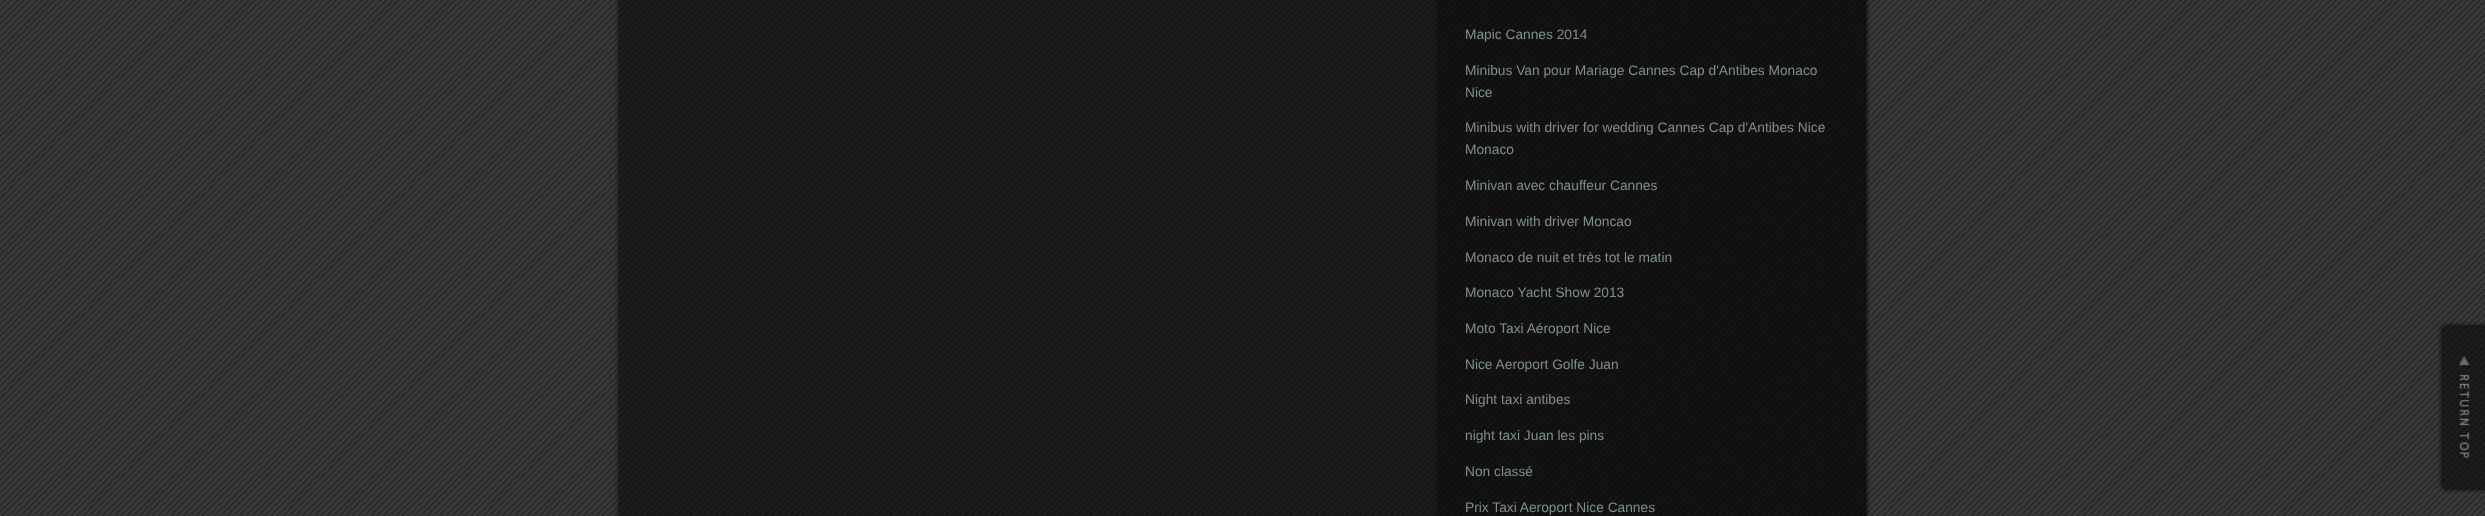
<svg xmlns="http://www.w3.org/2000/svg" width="2485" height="516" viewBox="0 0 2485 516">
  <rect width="100%" height="100%" fill="rgb(255,255,255)"/>
  <image x="0" y="0" width="2485" height="516" href="pic1.png"/>
  <image x="615" y="0" width="1255" height="516" href="pic2.png"/>
  <g font-family="Liberation Sans" font-size="13.75" fill="rgb(127,142,145)">
    <text x="1465" y="39">Mapic Cannes 2014</text>
    <text>
      <tspan x="1465" y="75">Minibus Van pour Mariage Cannes Cap d'Antibes Monaco</tspan>
      <tspan x="1465" y="97">Nice</tspan>
    </text>
    <text>
      <tspan x="1465" y="132">Minibus with driver for wedding Cannes Cap d'Antibes Nice</tspan>
      <tspan x="1465" y="154">Monaco</tspan>
    </text>
    <text x="1465" y="190">Minivan avec chauffeur Cannes</text>
    <text x="1465" y="226">Minivan with driver Moncao</text>
    <text x="1465" y="262">Monaco de nuit et très tot le matin</text>
    <text x="1465" y="297">Monaco Yacht Show 2013</text>
    <text x="1465" y="333">Moto Taxi Aéroport Nice</text>
    <text x="1465" y="369">Nice Aeroport Golfe Juan</text>
    <text x="1465" y="404">Night taxi antibes</text>
    <text x="1465" y="440">night taxi Juan les pins</text>
    <text x="1465" y="476">Non classé</text>
    <text x="1465" y="512">Prix Taxi Aeroport Nice Cannes</text>
  </g>
  <image x="2438" y="322" width="47" height="171" href="pic3.png"/>
</svg>
